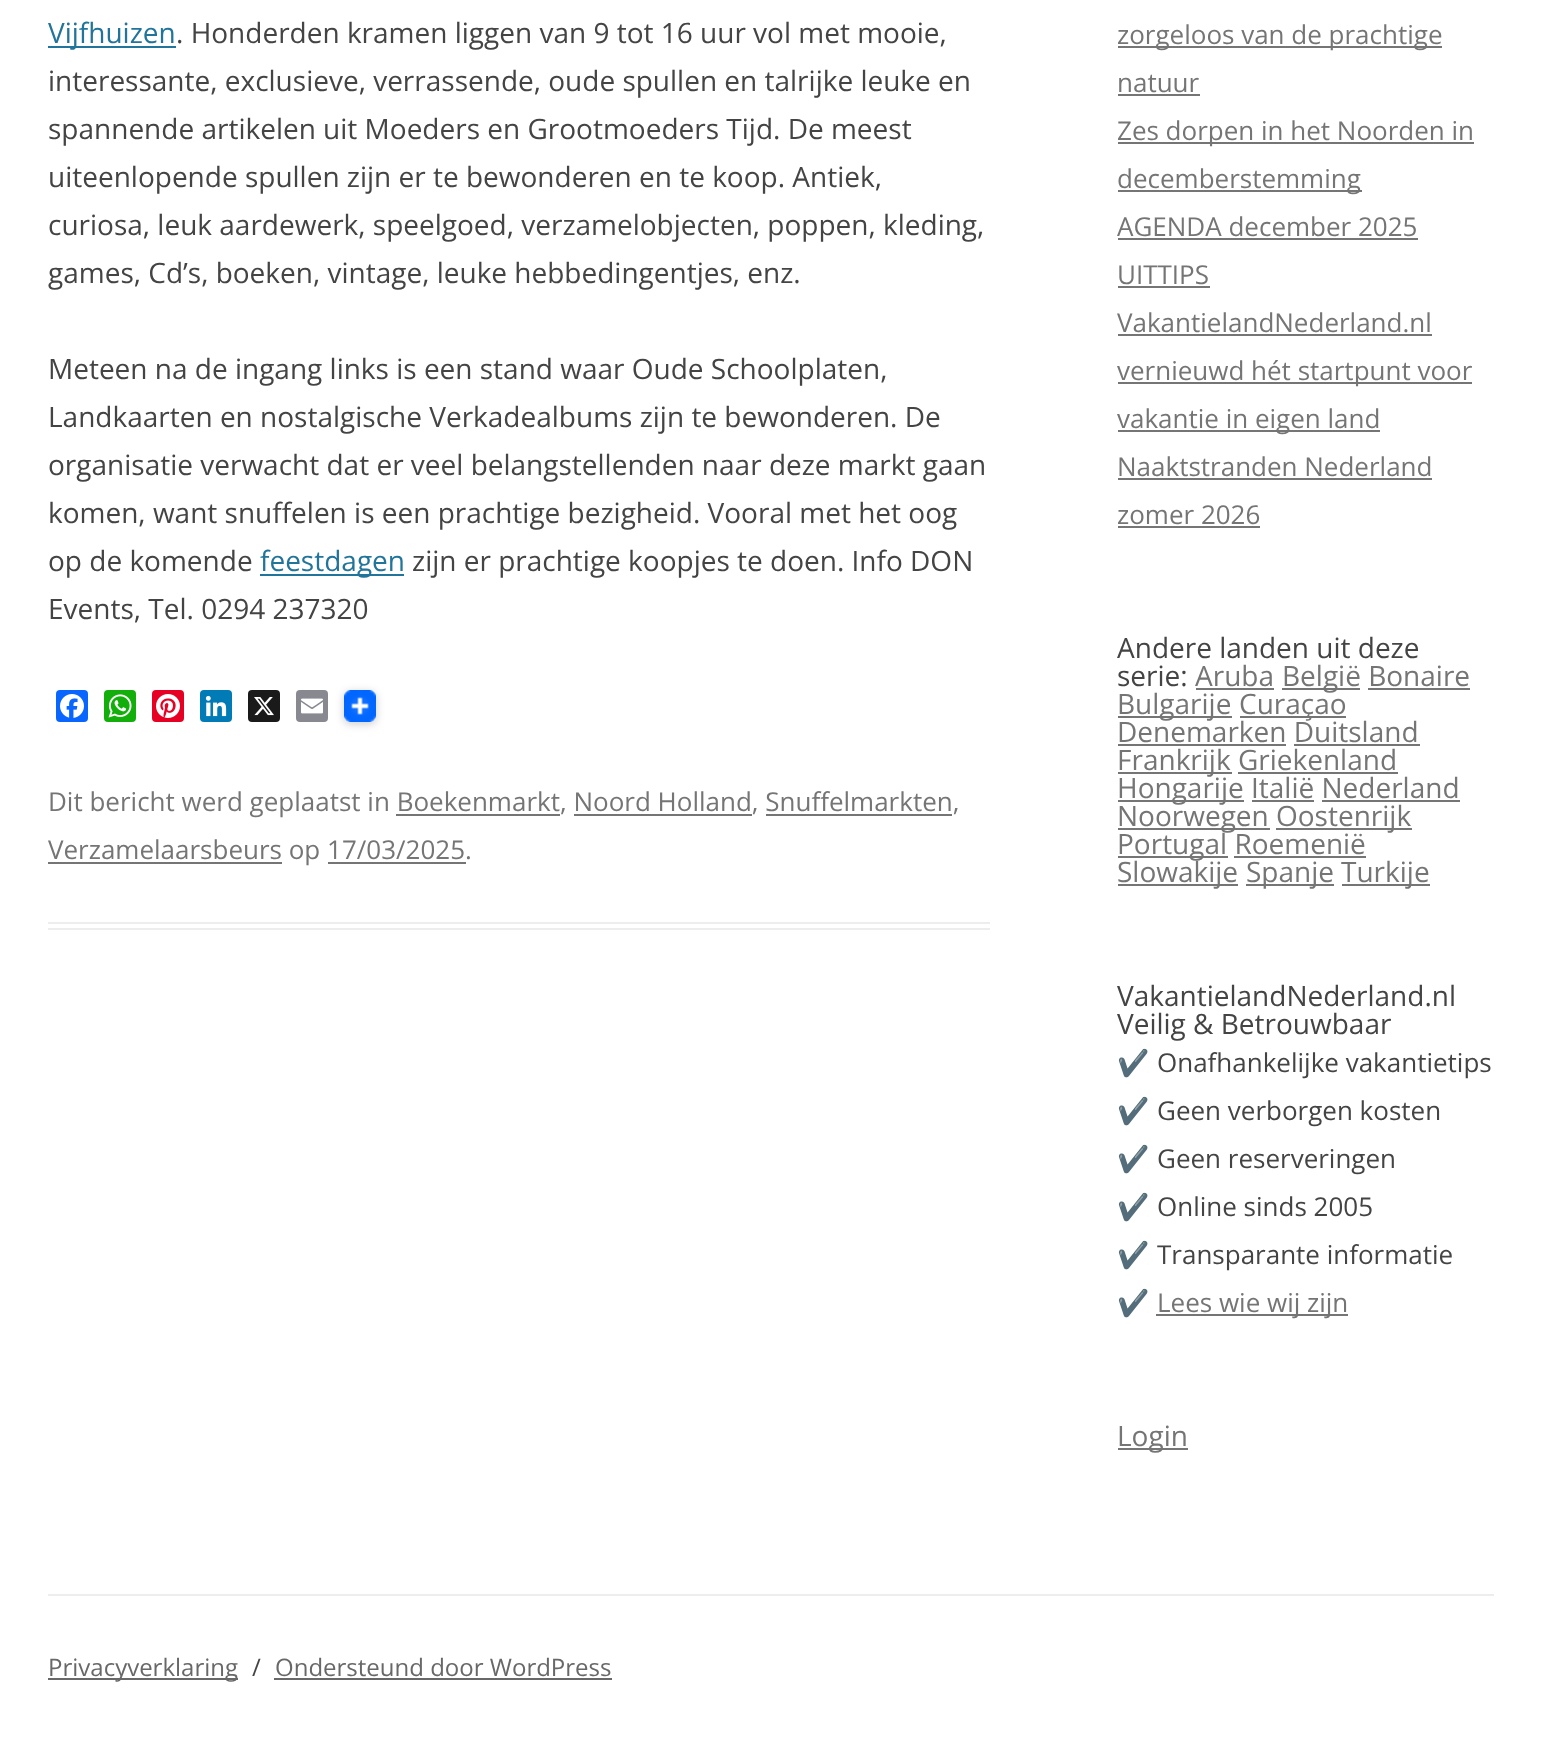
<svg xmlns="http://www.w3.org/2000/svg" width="1542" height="1739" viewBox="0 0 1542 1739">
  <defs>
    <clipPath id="clip1"><path d="M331 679H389V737H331ZM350 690H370C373.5 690 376 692.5 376 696V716C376 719.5 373.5 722 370 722H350C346.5 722 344 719.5 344 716V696C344 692.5 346.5 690 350 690Z" clip-rule="evenodd"/></clipPath>
  </defs>
  <rect width="100%" height="100%" fill="rgb(255,255,255)"/>
  <rect x="48" y="922" width="942" height="2" fill="rgb(237,237,237)"/>
  <rect x="48" y="928" width="942" height="2" fill="rgb(237,237,237)"/>
  <rect x="48" y="46" width="128" height="2" fill="rgb(33,117,155)"/>
  <text x="48" y="43" font-family="Open Sans" font-size="28" fill="rgb(33,117,155)">Vijfhuizen</text>
  <g font-family="Open Sans" font-size="28" fill="rgb(68,68,68)">
    <text x="176" y="43">. Honderden kramen liggen van 9 tot 16 uur vol met mooie,</text>
    <text>
      <tspan x="48" y="91">interessante, exclusieve, verrassende, oude spullen en talrijke leuke en</tspan>
      <tspan x="48" y="139">spannende artikelen uit Moeders en Grootmoeders Tijd. De meest</tspan>
      <tspan x="48" y="187">uiteenlopende spullen zijn er te bewonderen en te koop. Antiek,</tspan>
      <tspan x="48" y="235">curiosa, leuk aardewerk, speelgoed, verzamelobjecten, poppen, kleding,</tspan>
      <tspan x="48" y="283">games, Cd’s, boeken, vintage, leuke hebbedingentjes, enz.</tspan>
    </text>
    <text>
      <tspan x="48" y="379">Meteen na de ingang links is een stand waar Oude Schoolplaten,</tspan>
      <tspan x="48" y="427">Landkaarten en nostalgische Verkadealbums zijn te bewonderen. De</tspan>
      <tspan x="48" y="475">organisatie verwacht dat er veel belangstellenden naar deze markt gaan</tspan>
      <tspan x="48" y="523">komen, want snuffelen is een prachtige bezigheid. Vooral met het oog</tspan>
      <tspan x="48" y="571">op de komende</tspan>
    </text>
  </g>
  <rect x="260" y="574" width="144" height="2" fill="rgb(33,117,155)"/>
  <text x="260" y="571" font-family="Open Sans" font-size="28" fill="rgb(33,117,155)">feestdagen</text>
  <g font-family="Open Sans" font-size="28" fill="rgb(68,68,68)">
    <text x="412" y="571">zijn er prachtige koopjes te doen. Info DON</text>
    <text x="48" y="619">Events, Tel. 0294 237320</text>
  </g>
  <rect x="56" y="690" width="32" height="32" rx="4" fill="rgb(8,102,255)"/>
  <image x="60" y="694" width="24" height="24" href="pic1.png"/>
  <rect x="104" y="690" width="32" height="32" rx="4" fill="rgb(18,175,10)"/>
  <image x="108" y="694" width="24" height="24" href="pic2.png"/>
  <rect x="152" y="690" width="32" height="32" rx="4" fill="rgb(230,0,35)"/>
  <image x="156" y="694" width="24" height="24" href="pic3.png"/>
  <rect x="200" y="690" width="32" height="32" rx="4" fill="rgb(0,123,181)"/>
  <image x="205" y="695" width="22" height="22" href="pic4.png"/>
  <rect x="248" y="690" width="32" height="32" rx="4" fill="rgb(26,26,26)"/>
  <image x="254" y="697" width="20" height="19" href="pic5.png"/>
  <rect x="296" y="690" width="32" height="32" rx="4" fill="rgb(136,137,144)"/>
  <image x="301" y="698" width="22" height="16" href="pic6.png"/>
  <g clip-path="url(#clip1)">
    <rect x="344" y="692" width="32" height="32" rx="6" fill="rgba(0,0,0,0.2)" filter="blur(4px)"/>
  </g>
  <image x="344" y="690" width="32" height="32" href="pic7.png"/>
  <text x="48" y="811" font-family="Open Sans" font-size="26" fill="rgb(117,117,117)">Dit bericht werd geplaatst in Boekenmarkt, Noord Holland, Snuffelmarkten,</text>
  <rect x="396" y="814" width="164" height="2" fill="rgb(117,117,117)"/>
  <rect x="574" y="814" width="178" height="2" fill="rgb(117,117,117)"/>
  <rect x="766" y="814" width="186" height="2" fill="rgb(117,117,117)"/>
  <rect x="48" y="862" width="234" height="2" fill="rgb(117,117,117)"/>
  <text x="48" y="859" font-family="Open Sans" font-size="26" fill="rgb(117,117,117)">Verzamelaarsbeurs op 17/03/2025.</text>
  <rect x="328" y="862" width="138" height="2" fill="rgb(117,117,117)"/>
  <rect x="1118" y="46" width="324" height="2" fill="rgb(117,117,117)"/>
  <g font-family="Open Sans" font-size="26" fill="rgb(117,117,117)">
    <text>
      <tspan x="1117" y="44">zorgeloos van de prachtige</tspan>
      <tspan x="1117" y="92">natuur</tspan>
    </text>
  </g>
  <rect x="1118" y="94" width="82" height="2" fill="rgb(117,117,117)"/>
  <rect x="1118" y="142" width="356" height="2" fill="rgb(117,117,117)"/>
  <text x="1117" y="140" font-family="Open Sans" font-size="26" fill="rgb(117,117,117)">Zes dorpen in het Noorden in</text>
  <rect x="1118" y="190" width="244" height="2" fill="rgb(117,117,117)"/>
  <g font-family="Open Sans" font-size="26" fill="rgb(117,117,117)">
    <text>
      <tspan x="1117" y="188">decemberstemming</tspan>
      <tspan x="1117" y="236">AGENDA december 2025</tspan>
    </text>
  </g>
  <rect x="1118" y="238" width="300" height="2" fill="rgb(117,117,117)"/>
  <text x="1117" y="284" font-family="Open Sans" font-size="26" fill="rgb(117,117,117)">UITTIPS</text>
  <rect x="1118" y="286" width="92" height="2" fill="rgb(117,117,117)"/>
  <text x="1117" y="332" font-family="Open Sans" font-size="26" fill="rgb(117,117,117)">VakantielandNederland.nl</text>
  <rect x="1118" y="334" width="314" height="2" fill="rgb(117,117,117)"/>
  <rect x="1118" y="382" width="354" height="2" fill="rgb(117,117,117)"/>
  <text x="1117" y="380" font-family="Open Sans" font-size="26" fill="rgb(117,117,117)">vernieuwd hét startpunt voor</text>
  <rect x="1118" y="430" width="262" height="2" fill="rgb(117,117,117)"/>
  <g font-family="Open Sans" font-size="26" fill="rgb(117,117,117)">
    <text>
      <tspan x="1117" y="428">vakantie in eigen land</tspan>
      <tspan x="1117" y="476">Naaktstranden Nederland</tspan>
    </text>
  </g>
  <rect x="1118" y="478" width="314" height="2" fill="rgb(117,117,117)"/>
  <text x="1117" y="524" font-family="Open Sans" font-size="26" fill="rgb(117,117,117)">zomer 2026</text>
  <rect x="1118" y="526" width="142" height="2" fill="rgb(117,117,117)"/>
  <g font-family="Open Sans" font-size="28" fill="rgb(68,68,68)">
    <text>
      <tspan x="1117" y="658">Andere landen uit deze</tspan>
      <tspan x="1117" y="686">serie:</tspan>
    </text>
  </g>
  <text x="1195" y="686" font-family="Open Sans" font-size="28" fill="rgb(117,117,117)">Aruba</text>
  <rect x="1196" y="688" width="78" height="2" fill="rgb(117,117,117)"/>
  <rect x="1282" y="688" width="78" height="2" fill="rgb(117,117,117)"/>
  <text x="1282" y="686" font-family="Open Sans" font-size="28" fill="rgb(117,117,117)">België Bonaire</text>
  <rect x="1368" y="688" width="102" height="2" fill="rgb(117,117,117)"/>
  <rect x="1118" y="716" width="114" height="2" fill="rgb(117,117,117)"/>
  <text x="1117" y="714" font-family="Open Sans" font-size="28" fill="rgb(117,117,117)">Bulgarije</text>
  <rect x="1240" y="716" width="106" height="2" fill="rgb(117,117,117)"/>
  <g font-family="Open Sans" font-size="28" fill="rgb(117,117,117)">
    <text x="1239" y="714">Curaçao</text>
    <text x="1117" y="742">Denemarken Duitsland</text>
  </g>
  <rect x="1118" y="744" width="168" height="2" fill="rgb(117,117,117)"/>
  <rect x="1294" y="744" width="126" height="2" fill="rgb(117,117,117)"/>
  <rect x="1118" y="772" width="114" height="2" fill="rgb(117,117,117)"/>
  <text x="1117" y="770" font-family="Open Sans" font-size="28" fill="rgb(117,117,117)">Frankrijk Griekenland</text>
  <rect x="1238" y="772" width="160" height="2" fill="rgb(117,117,117)"/>
  <rect x="1118" y="800" width="126" height="2" fill="rgb(117,117,117)"/>
  <text x="1117" y="798" font-family="Open Sans" font-size="28" fill="rgb(117,117,117)">Hongarije Italië Nederland</text>
  <rect x="1252" y="800" width="62" height="2" fill="rgb(117,117,117)"/>
  <rect x="1322" y="800" width="138" height="2" fill="rgb(117,117,117)"/>
  <rect x="1118" y="828" width="152" height="2" fill="rgb(117,117,117)"/>
  <text x="1117" y="826" font-family="Open Sans" font-size="28" fill="rgb(117,117,117)">Noorwegen</text>
  <rect x="1276" y="828" width="136" height="2" fill="rgb(117,117,117)"/>
  <text x="1276" y="826" font-family="Open Sans" font-size="28" fill="rgb(117,117,117)">Oostenrijk</text>
  <rect x="1118" y="856" width="110" height="2" fill="rgb(117,117,117)"/>
  <text x="1117" y="854" font-family="Open Sans" font-size="28" fill="rgb(117,117,117)">Portugal Roemenië</text>
  <rect x="1234" y="856" width="132" height="2" fill="rgb(117,117,117)"/>
  <rect x="1118" y="884" width="120" height="2" fill="rgb(117,117,117)"/>
  <text x="1117" y="882" font-family="Open Sans" font-size="28" fill="rgb(117,117,117)">Slowakije</text>
  <rect x="1246" y="884" width="88" height="2" fill="rgb(117,117,117)"/>
  <text x="1246" y="882" font-family="Open Sans" font-size="28" fill="rgb(117,117,117)">Spanje</text>
  <rect x="1342" y="884" width="88" height="2" fill="rgb(117,117,117)"/>
  <text x="1341" y="882" font-family="Open Sans" font-size="28" fill="rgb(117,117,117)">Turkije</text>
  <g font-family="Open Sans" font-size="28" fill="rgb(68,68,68)">
    <text>
      <tspan x="1117" y="1006">VakantielandNederland.nl</tspan>
      <tspan x="1117" y="1034">Veilig &amp; Betrouwbaar</tspan>
    </text>
  </g>
  <text x="1117" y="1072" font-family="Noto Color Emoji" font-size="26" fill="rgb(68,68,68)">✔️</text>
  <text x="1157" y="1072" font-family="Open Sans" font-size="26" fill="rgb(68,68,68)">Onafhankelijke vakantietips</text>
  <text x="1117" y="1120" font-family="Noto Color Emoji" font-size="26" fill="rgb(68,68,68)">✔️</text>
  <text x="1157" y="1120" font-family="Open Sans" font-size="26" fill="rgb(68,68,68)">Geen verborgen kosten</text>
  <text x="1117" y="1168" font-family="Noto Color Emoji" font-size="26" fill="rgb(68,68,68)">✔️</text>
  <text x="1157" y="1168" font-family="Open Sans" font-size="26" fill="rgb(68,68,68)">Geen reserveringen</text>
  <text x="1117" y="1216" font-family="Noto Color Emoji" font-size="26" fill="rgb(68,68,68)">✔️</text>
  <text x="1157" y="1216" font-family="Open Sans" font-size="26" fill="rgb(68,68,68)">Online sinds 2005</text>
  <text x="1117" y="1264" font-family="Noto Color Emoji" font-size="26" fill="rgb(68,68,68)">✔️</text>
  <text x="1157" y="1264" font-family="Open Sans" font-size="26" fill="rgb(68,68,68)">Transparante informatie</text>
  <text x="1117" y="1312" font-family="Noto Color Emoji" font-size="26" fill="rgb(68,68,68)">✔️</text>
  <rect x="1156" y="1314" width="192" height="2" fill="rgb(117,117,117)"/>
  <text x="1157" y="1312" font-family="Open Sans" font-size="26" fill="rgb(117,117,117)">Lees wie wij zijn</text>
  <rect x="1118" y="1448" width="70" height="2" fill="rgb(117,117,117)"/>
  <text x="1117" y="1446" font-family="Open Sans" font-size="28" fill="rgb(117,117,117)">Login</text>
  <rect x="48" y="1594" width="1446" height="2" fill="rgb(237,237,237)"/>
  <rect x="48" y="1678" width="190" height="2" fill="rgb(104,104,104)"/>
  <text x="48" y="1676" font-family="Open Sans" font-size="24" fill="rgb(104,104,104)">Privacyverklaring</text>
  <text x="252" y="1676" font-family="Open Sans" font-size="24" fill="rgb(68,68,68)">/</text>
  <text x="275" y="1676" font-family="Open Sans" font-size="24" fill="rgb(104,104,104)">Ondersteund door WordPress</text>
  <rect x="274" y="1678" width="338" height="2" fill="rgb(104,104,104)"/>
</svg>
